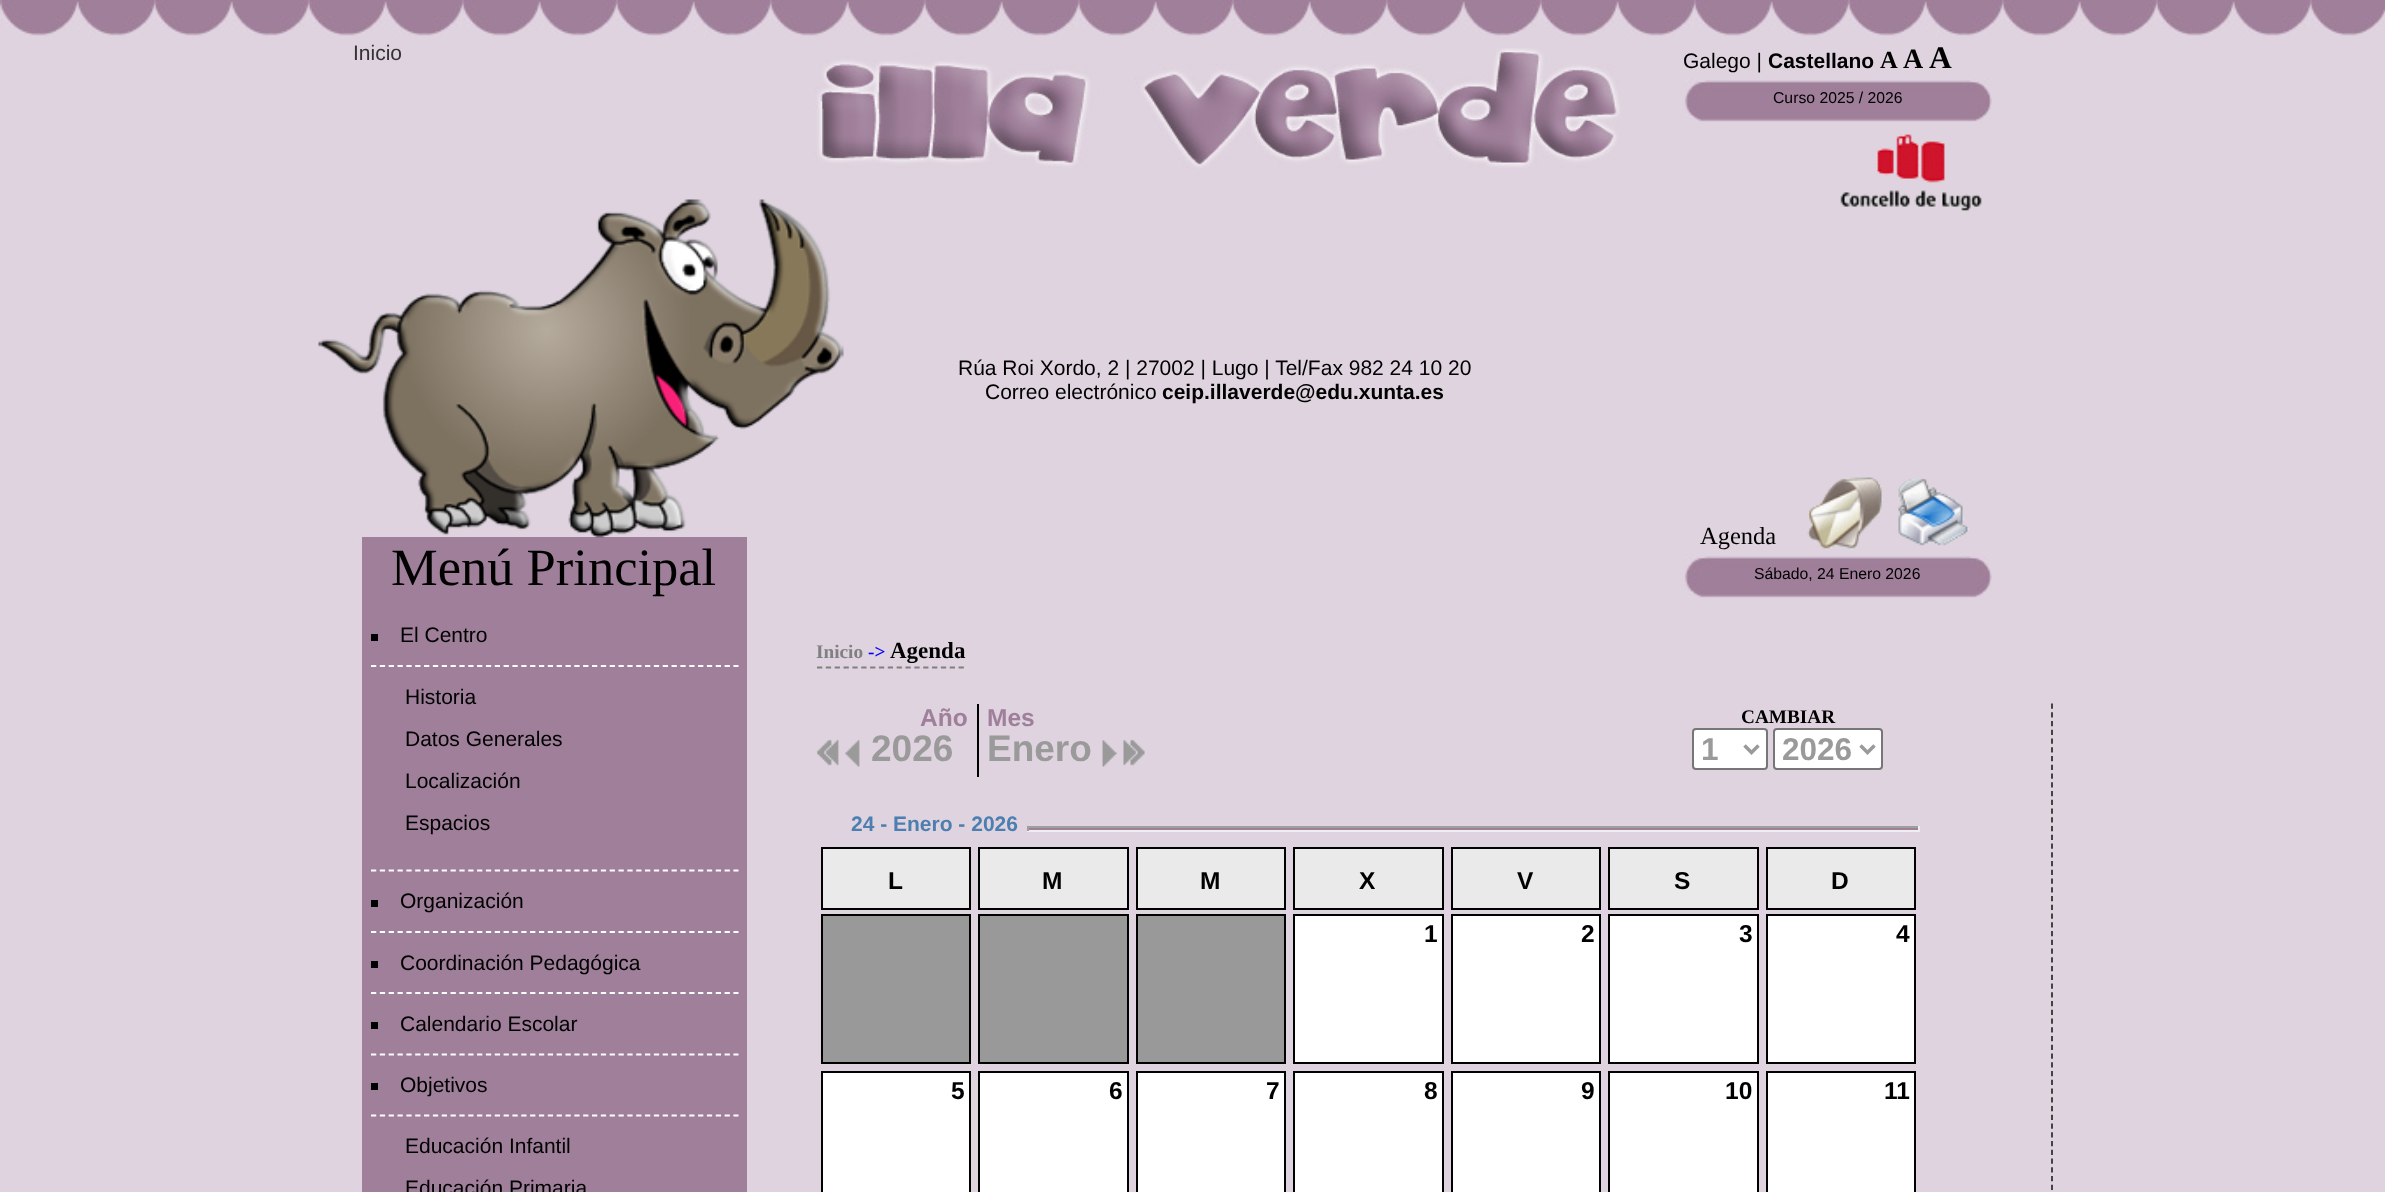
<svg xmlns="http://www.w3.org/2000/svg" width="2385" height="1192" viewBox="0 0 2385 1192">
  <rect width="100%" height="100%" fill="rgb(222,211,222)"/>
  <image x="0" y="0" width="2385" height="36" href="pic1.png"/>
  <text x="353" y="60" font-family="Liberation Sans" font-size="21" fill="rgb(51,51,51)">Inicio</text>
  <rect x="362" y="537" width="385" height="655" fill="rgb(159,127,154)"/>
  <image x="318" y="199" width="526" height="339" href="pic2.png"/>
  <text x="391" y="585" font-family="Liberation Serif" font-size="52.5" fill="rgb(0,0,0)">Menú Principal</text>
  <path d="M371 870.5H738.5" fill="none" stroke="rgb(255,255,255)" stroke-width="1.8" stroke-dasharray="5.25 3.59"/>
  <rect x="371" y="634" width="7" height="7" fill="rgb(0,0,0)"/>
  <text x="400" y="642" font-family="Liberation Sans" font-size="21" fill="rgb(0,0,0)">El Centro</text>
  <path d="M371 666H738.5" fill="none" stroke="rgb(255,255,255)" stroke-width="1.8" stroke-dasharray="5.25 3.59"/>
  <g font-family="Liberation Sans" font-size="21" fill="rgb(0,0,0)">
    <text x="405" y="704">Historia</text>
    <text x="405" y="746">Datos Generales</text>
    <text x="405" y="788">Localización</text>
    <text x="405" y="830">Espacios</text>
  </g>
  <path d="M371 932H738.5" fill="none" stroke="rgb(255,255,255)" stroke-width="1.8" stroke-dasharray="5.25 3.59"/>
  <rect x="371" y="900" width="7" height="7" fill="rgb(0,0,0)"/>
  <text x="400" y="908" font-family="Liberation Sans" font-size="21" fill="rgb(0,0,0)">Organización</text>
  <path d="M371 993H738.5" fill="none" stroke="rgb(255,255,255)" stroke-width="1.8" stroke-dasharray="5.25 3.59"/>
  <rect x="371" y="961" width="7" height="7" fill="rgb(0,0,0)"/>
  <text x="400" y="970" font-family="Liberation Sans" font-size="21" fill="rgb(0,0,0)">Coordinación Pedagógica</text>
  <path d="M371 1054.5H738.5" fill="none" stroke="rgb(255,255,255)" stroke-width="1.8" stroke-dasharray="5.25 3.59"/>
  <rect x="371" y="1022" width="7" height="7" fill="rgb(0,0,0)"/>
  <text x="400" y="1031" font-family="Liberation Sans" font-size="21" fill="rgb(0,0,0)">Calendario Escolar</text>
  <rect x="371" y="1083" width="7" height="7" fill="rgb(0,0,0)"/>
  <text x="400" y="1092" font-family="Liberation Sans" font-size="21" fill="rgb(0,0,0)">Objetivos</text>
  <path d="M371 1115.5H738.5" fill="none" stroke="rgb(255,255,255)" stroke-width="1.8" stroke-dasharray="5.25 3.59"/>
  <g font-family="Liberation Sans" font-size="21" fill="rgb(0,0,0)">
    <text x="405" y="1153">Educación Infantil</text>
    <text x="405" y="1195">Educación Primaria</text>
  </g>
  <image x="814" y="48" width="807" height="121" href="pic3.png"/>
  <g font-family="Liberation Sans" font-size="21" fill="rgb(0,0,0)">
    <text x="958" y="375">Rúa Roi Xordo, 2 | 27002 | Lugo | Tel/Fax 982 24 10 20</text>
    <text x="985" y="399">Correo electrónico</text>
  </g>
  <text x="1162" y="399" font-family="Liberation Sans" font-size="21" font-weight="bold" fill="rgb(0,0,0)">ceip.illaverde@edu.xunta.es</text>
  <text x="1683" y="68" font-family="Liberation Sans" font-size="21" fill="rgb(0,0,0)">Galego |</text>
  <text x="1768" y="68" font-family="Liberation Sans" font-size="21" font-weight="bold" fill="rgb(0,0,0)">Castellano</text>
  <text x="1880" y="68" font-family="Liberation Serif" font-size="24.5" font-weight="bold" fill="rgb(0,0,0)">A</text>
  <text x="1903" y="68" font-family="Liberation Serif" font-size="28" font-weight="bold" fill="rgb(0,0,0)">A</text>
  <text x="1929" y="68" font-family="Liberation Serif" font-size="31.5" font-weight="bold" fill="rgb(0,0,0)">A</text>
  <image x="1684" y="79" width="308" height="43" href="pic4.png"/>
  <text x="1773" y="103" font-family="Liberation Sans" font-size="15.75" fill="rgb(0,0,0)">Curso 2025 / 2026</text>
  <image x="1840" y="134" width="142" height="78" href="pic5.png"/>
  <text x="1700" y="544" font-family="Liberation Serif" font-size="24.5" fill="rgb(0,0,0)">Agenda</text>
  <image x="1807" y="477" width="77" height="73" href="pic6.png"/>
  <image x="1898" y="477" width="72" height="69" href="pic7.png"/>
  <image x="1684" y="555" width="308" height="43" href="pic8.png"/>
  <text x="1754" y="579" font-family="Liberation Sans" font-size="15.75" fill="rgb(0,0,0)">Sábado, 24 Enero 2026</text>
  <path d="M817 667.5H964" fill="none" stroke="rgb(128,128,128)" stroke-width="1.8" stroke-dasharray="5.25 3.6"/>
  <text x="816" y="658" font-family="Liberation Serif" font-size="19.25" font-weight="bold" fill="rgb(128,128,128)">Inicio</text>
  <text x="868" y="658" font-family="Liberation Serif" font-size="19.25" font-weight="bold" fill="rgb(0,0,255)">-&gt;</text>
  <text x="890" y="658" font-family="Liberation Serif" font-size="23" font-weight="bold" fill="rgb(0,0,0)">Agenda</text>
  <path d="M2052 703.5V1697.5" fill="none" stroke="rgb(51,51,51)" stroke-width="1.8" stroke-dasharray="5.25 3.5"/>
  <image x="817" y="739" width="22" height="27" href="pic9.png"/>
  <image x="845" y="740" width="15" height="27" href="pic10.png"/>
  <rect x="977" y="704" width="2" height="73" fill="rgb(0,0,0)"/>
  <text x="920" y="726" font-family="Liberation Sans" font-size="24.5" font-weight="bold" fill="rgb(159,127,154)">Año</text>
  <text x="871" y="761" font-family="Liberation Sans" font-size="37" font-weight="bold" fill="rgb(154,154,154)">2026</text>
  <text x="987" y="726" font-family="Liberation Sans" font-size="24.5" font-weight="bold" fill="rgb(159,127,154)">Mes</text>
  <text x="987" y="761" font-family="Liberation Sans" font-size="37" font-weight="bold" fill="rgb(154,154,154)">Enero</text>
  <image x="1102" y="740" width="15" height="27" href="pic11.png"/>
  <image x="1123" y="739" width="22" height="27" href="pic12.png"/>
  <text x="1741" y="723" font-family="Liberation Serif" font-size="19.25" font-weight="bold" fill="rgb(0,0,0)">CAMBIAR</text>
  <rect x="1693" y="729" width="74" height="40" rx="3" fill="rgb(255,255,255)" stroke="rgb(118,118,118)" stroke-width="2"/>
  <path d="M1744.5 745.5L1751.5 752.5L1758.5 745.5" fill="none" stroke="rgb(154,154,154)" stroke-width="3.5"/>
  <text x="1701" y="760" font-family="Liberation Sans" font-size="31.5" font-weight="bold" fill="rgb(154,154,154)">1</text>
  <rect x="1774" y="729" width="108" height="40" rx="3" fill="rgb(255,255,255)" stroke="rgb(118,118,118)" stroke-width="2"/>
  <path d="M1860.5 745.5L1867.5 752.5L1874.5 745.5" fill="none" stroke="rgb(154,154,154)" stroke-width="3.5"/>
  <text x="1782" y="760" font-family="Liberation Sans" font-size="31.5" font-weight="bold" fill="rgb(154,154,154)">2026</text>
  <text x="851" y="831" font-family="Liberation Sans" font-size="21" font-weight="bold" fill="rgb(76,127,176)">24 - Enero - 2026</text>
  <rect x="1027" y="828" width="893" height="2" fill="rgb(159,127,154)"/>
  <rect x="1027" y="826" width="893" height="2" fill="rgb(159,159,159)"/>
  <rect x="1918" y="826" width="2" height="5" fill="rgb(238,238,238)"/>
  <rect x="1027" y="830" width="893" height="2" fill="rgb(238,238,238)"/>
  <rect x="1027" y="826" width="2" height="5" fill="rgb(159,159,159)"/>
  <rect x="822" y="848" width="148" height="61" fill="rgb(234,234,234)" stroke="rgb(0,0,0)" stroke-width="2"/>
  <text x="888" y="889" font-family="Liberation Sans" font-size="24.5" font-weight="bold" fill="rgb(0,0,0)">L</text>
  <rect x="979" y="848" width="149" height="61" fill="rgb(234,234,234)" stroke="rgb(0,0,0)" stroke-width="2"/>
  <text x="1042" y="889" font-family="Liberation Sans" font-size="24.5" font-weight="bold" fill="rgb(0,0,0)">M</text>
  <rect x="1137" y="848" width="148" height="61" fill="rgb(234,234,234)" stroke="rgb(0,0,0)" stroke-width="2"/>
  <text x="1200" y="889" font-family="Liberation Sans" font-size="24.5" font-weight="bold" fill="rgb(0,0,0)">M</text>
  <rect x="1294" y="848" width="149" height="61" fill="rgb(234,234,234)" stroke="rgb(0,0,0)" stroke-width="2"/>
  <text x="1359" y="889" font-family="Liberation Sans" font-size="24.5" font-weight="bold" fill="rgb(0,0,0)">X</text>
  <rect x="1452" y="848" width="148" height="61" fill="rgb(234,234,234)" stroke="rgb(0,0,0)" stroke-width="2"/>
  <text x="1517" y="889" font-family="Liberation Sans" font-size="24.5" font-weight="bold" fill="rgb(0,0,0)">V</text>
  <rect x="1609" y="848" width="149" height="61" fill="rgb(234,234,234)" stroke="rgb(0,0,0)" stroke-width="2"/>
  <text x="1674" y="889" font-family="Liberation Sans" font-size="24.5" font-weight="bold" fill="rgb(0,0,0)">S</text>
  <rect x="1767" y="848" width="148" height="61" fill="rgb(234,234,234)" stroke="rgb(0,0,0)" stroke-width="2"/>
  <text x="1831" y="889" font-family="Liberation Sans" font-size="24.5" font-weight="bold" fill="rgb(0,0,0)">D</text>
  <rect x="822" y="915" width="148" height="148" fill="rgb(153,153,153)" stroke="rgb(0,0,0)" stroke-width="2"/>
  <rect x="979" y="915" width="149" height="148" fill="rgb(153,153,153)" stroke="rgb(0,0,0)" stroke-width="2"/>
  <rect x="1137" y="915" width="148" height="148" fill="rgb(153,153,153)" stroke="rgb(0,0,0)" stroke-width="2"/>
  <rect x="1294" y="915" width="149" height="148" fill="rgb(255,255,255)" stroke="rgb(0,0,0)" stroke-width="2"/>
  <text x="1424" y="942" font-family="Liberation Sans" font-size="24.5" font-weight="bold" fill="rgb(0,0,0)">1</text>
  <rect x="1452" y="915" width="148" height="148" fill="rgb(255,255,255)" stroke="rgb(0,0,0)" stroke-width="2"/>
  <text x="1581" y="942" font-family="Liberation Sans" font-size="24.5" font-weight="bold" fill="rgb(0,0,0)">2</text>
  <rect x="1609" y="915" width="149" height="148" fill="rgb(255,255,255)" stroke="rgb(0,0,0)" stroke-width="2"/>
  <text x="1739" y="942" font-family="Liberation Sans" font-size="24.5" font-weight="bold" fill="rgb(0,0,0)">3</text>
  <rect x="1767" y="915" width="148" height="148" fill="rgb(255,255,255)" stroke="rgb(0,0,0)" stroke-width="2"/>
  <text x="1896" y="942" font-family="Liberation Sans" font-size="24.5" font-weight="bold" fill="rgb(0,0,0)">4</text>
  <rect x="822" y="1072" width="148" height="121" fill="rgb(255,255,255)" stroke="rgb(0,0,0)" stroke-width="2"/>
  <text x="951" y="1099" font-family="Liberation Sans" font-size="24.5" font-weight="bold" fill="rgb(0,0,0)">5</text>
  <rect x="979" y="1072" width="149" height="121" fill="rgb(255,255,255)" stroke="rgb(0,0,0)" stroke-width="2"/>
  <text x="1109" y="1099" font-family="Liberation Sans" font-size="24.5" font-weight="bold" fill="rgb(0,0,0)">6</text>
  <rect x="1137" y="1072" width="148" height="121" fill="rgb(255,255,255)" stroke="rgb(0,0,0)" stroke-width="2"/>
  <text x="1266" y="1099" font-family="Liberation Sans" font-size="24.5" font-weight="bold" fill="rgb(0,0,0)">7</text>
  <rect x="1294" y="1072" width="149" height="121" fill="rgb(255,255,255)" stroke="rgb(0,0,0)" stroke-width="2"/>
  <text x="1424" y="1099" font-family="Liberation Sans" font-size="24.5" font-weight="bold" fill="rgb(0,0,0)">8</text>
  <rect x="1452" y="1072" width="148" height="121" fill="rgb(255,255,255)" stroke="rgb(0,0,0)" stroke-width="2"/>
  <text x="1581" y="1099" font-family="Liberation Sans" font-size="24.5" font-weight="bold" fill="rgb(0,0,0)">9</text>
  <rect x="1609" y="1072" width="149" height="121" fill="rgb(255,255,255)" stroke="rgb(0,0,0)" stroke-width="2"/>
  <text x="1725" y="1099" font-family="Liberation Sans" font-size="24.5" font-weight="bold" fill="rgb(0,0,0)">10</text>
  <rect x="1767" y="1072" width="148" height="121" fill="rgb(255,255,255)" stroke="rgb(0,0,0)" stroke-width="2"/>
  <text x="1884" y="1099" font-family="Liberation Sans" font-size="24.5" font-weight="bold" fill="rgb(0,0,0)">11</text>
</svg>
